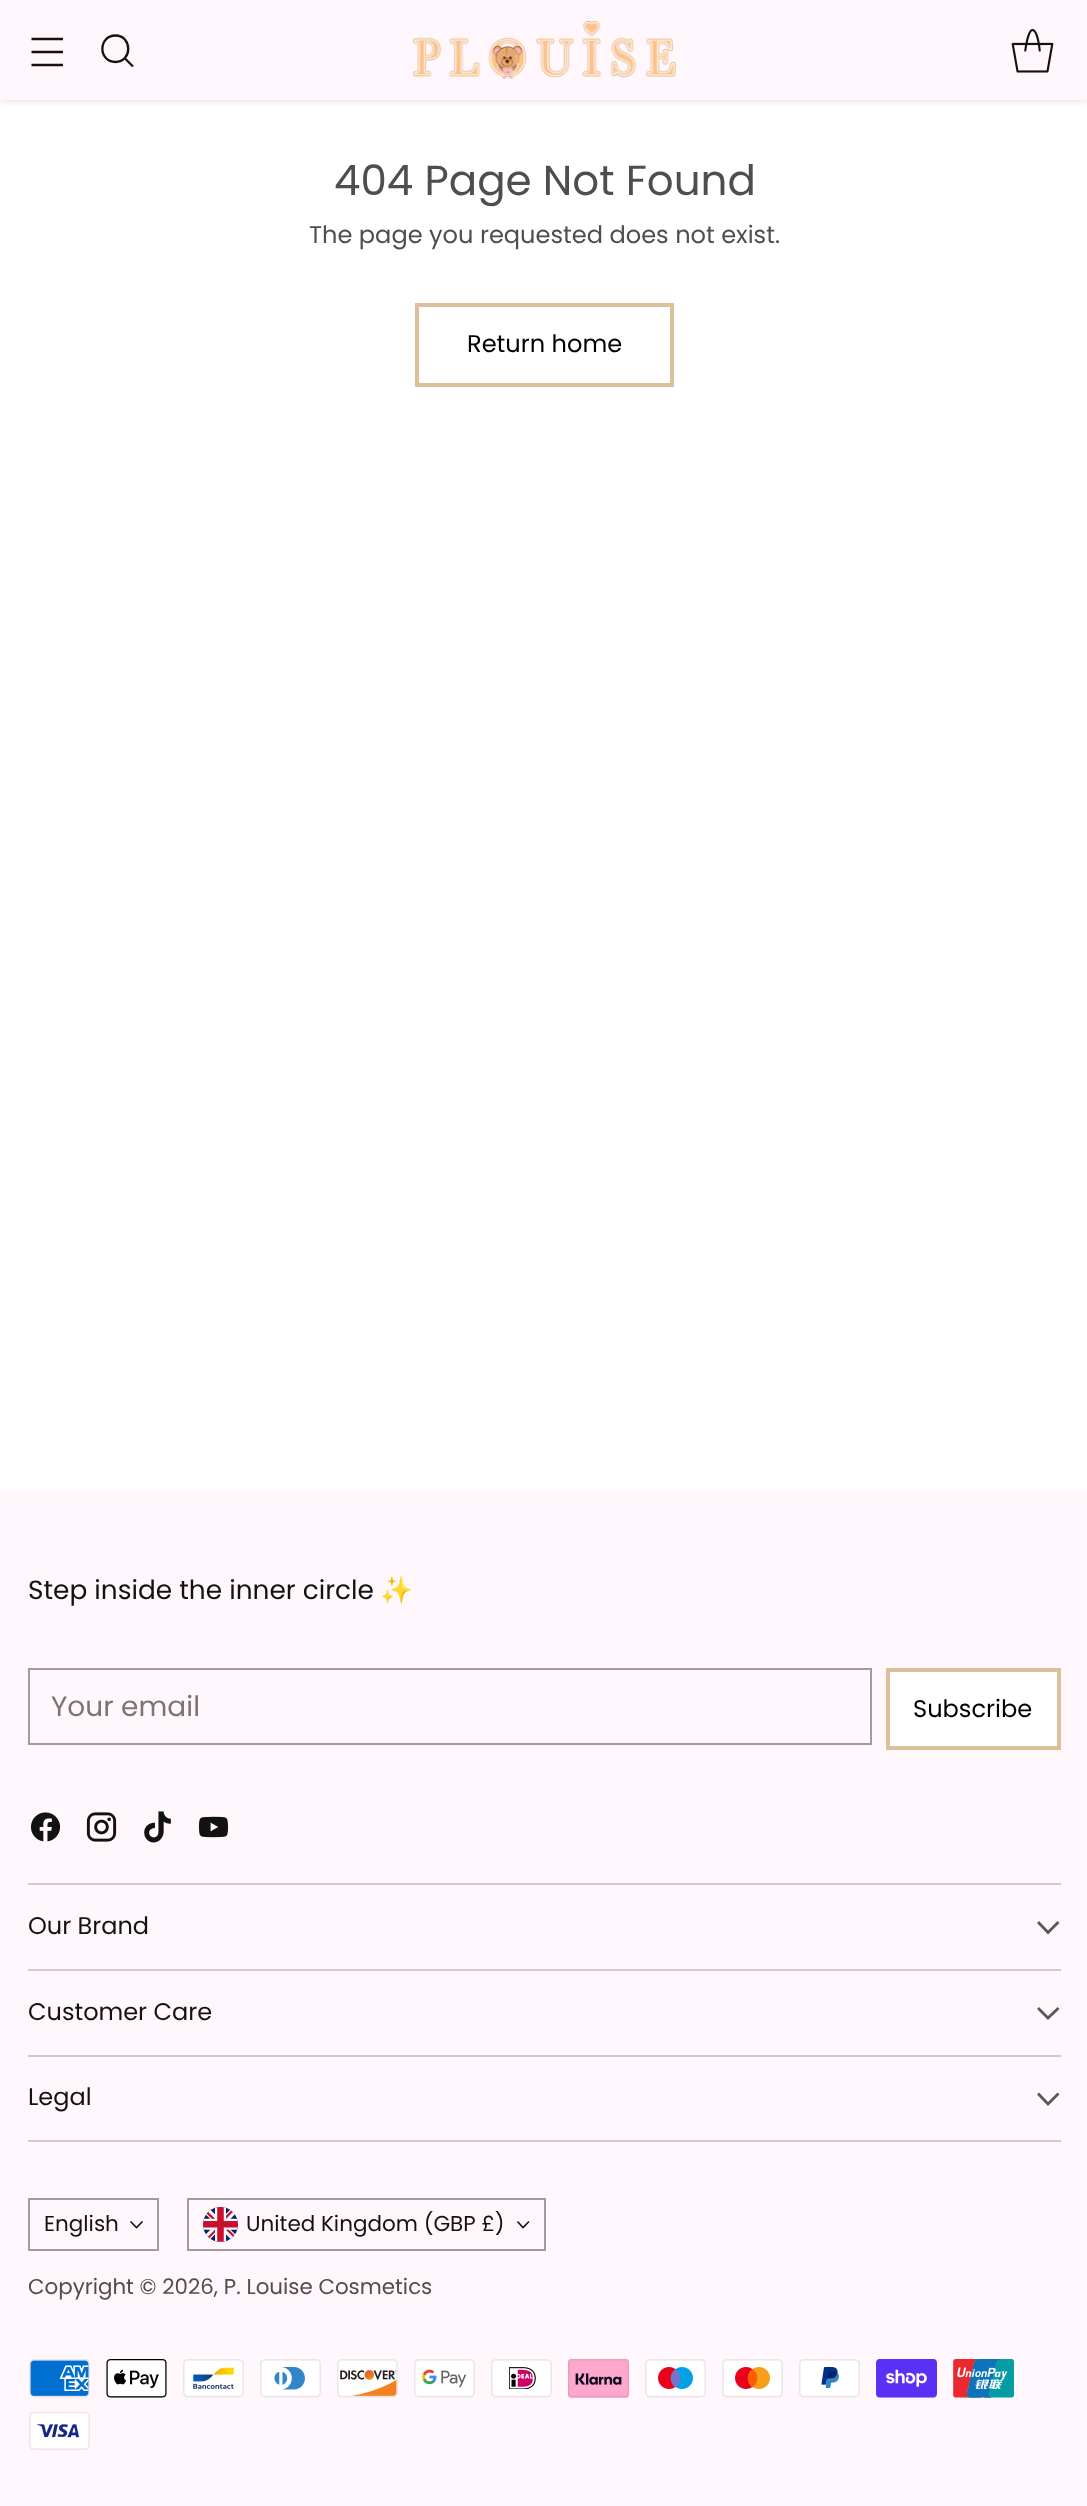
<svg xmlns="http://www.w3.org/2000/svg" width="1087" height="2506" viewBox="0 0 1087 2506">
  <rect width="100%" height="100%" fill="rgb(255,255,255)"/>
  <rect x="0" y="0" width="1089" height="100" fill="rgba(0,0,0,0.15)" filter="blur(4.5px)"/>
  <rect x="0" y="0" width="1087" height="100" fill="rgb(255,247,252)"/>
  <path d="M31.5 52H63M31.5 39H63M31.5 65H63" fill="none" stroke="rgb(18,18,18)" stroke-width="2.3"/>
  <path d="M115.5 62C132.5 62 132.5 35.5 115.5 35.5C98 35.5 98 62 115.5 62Z" fill="none" stroke="rgb(18,18,18)" stroke-width="2.3" stroke-linecap="round"/>
  <path d="M125 58.5L133 66.5" fill="none" stroke="rgb(18,18,18)" stroke-width="2.3"/>
  <image x="413" y="21" width="263" height="58" href="pic1.png"/>
  <image x="1011" y="29" width="43" height="44" href="pic2.png"/>
  <text x="334" y="195" font-family="Poppins" font-size="42" fill="rgb(78,78,78)">404 Page Not Found</text>
  <text x="309" y="243" font-family="Poppins" font-size="24.1" fill="rgb(78,78,78)">The page you requested does not exist.</text>
  <rect x="417" y="305" width="255" height="80" fill="none" stroke="rgb(219,192,156)" stroke-width="4"/>
  <text x="467" y="352" font-family="Poppins" font-size="24.1" fill="rgb(0,0,0)">Return home</text>
  <rect x="0" y="1491" width="1087" height="1015" fill="rgb(255,247,252)"/>
  <text x="28" y="1599" font-family="Poppins" font-size="26.4" fill="rgb(18,18,18)">Step inside the inner circle</text>
  <text x="380" y="1599" font-family="Noto Color Emoji" font-size="26.4" fill="rgb(18,18,18)">✨</text>
  <rect x="29" y="1669" width="842" height="75" fill="none" stroke="rgb(160,155,158)" stroke-width="2"/>
  <text x="51" y="1716" font-family="Poppins" font-size="28" fill="rgb(120,117,119)">Your email</text>
  <rect x="888" y="1670" width="171" height="78" fill="rgb(255,255,255)" stroke="rgb(219,192,156)" stroke-width="4"/>
  <text x="913" y="1717" font-family="Poppins" font-size="24.1" fill="rgb(0,0,0)">Subscribe</text>
  <image x="30" y="1812" width="31" height="30" href="pic3.png"/>
  <image x="86" y="1812" width="31" height="30" href="pic4.png"/>
  <image x="144" y="1811" width="27" height="32" href="pic5.png"/>
  <image x="198" y="1816" width="31" height="22" href="pic6.png"/>
  <rect x="28" y="1883" width="1033" height="2" fill="rgb(208,201,205)"/>
  <rect x="28" y="1969" width="1033" height="2" fill="rgb(208,201,205)"/>
  <text x="28" y="1934" font-family="Poppins" font-size="24" fill="rgb(18,18,18)">Our Brand</text>
  <path d="M1038 1922L1048 1932.5L1058.5 1922" fill="none" stroke="rgb(89,87,88)" stroke-width="2.8"/>
  <rect x="28" y="2055" width="1033" height="2" fill="rgb(208,201,205)"/>
  <text x="28" y="2020" font-family="Poppins" font-size="24" fill="rgb(18,18,18)">Customer Care</text>
  <path d="M1038 2008L1048 2018L1058.5 2008" fill="none" stroke="rgb(89,87,88)" stroke-width="2.8"/>
  <rect x="28" y="2140" width="1033" height="2" fill="rgb(208,201,205)"/>
  <text x="28" y="2105" font-family="Poppins" font-size="24" fill="rgb(18,18,18)">Legal</text>
  <path d="M1038 2093.5L1048 2104L1058.5 2093.5" fill="none" stroke="rgb(89,87,88)" stroke-width="2.8"/>
  <rect x="29" y="2199" width="129" height="51" fill="none" stroke="rgb(160,155,158)" stroke-width="2"/>
  <text x="44" y="2231" font-family="Poppins" font-size="21.5" fill="rgb(18,18,18)">English</text>
  <path d="M130.5 2221.5L136.5 2227.5L142.5 2221.5" fill="none" stroke="rgb(18,18,18)" stroke-width="1.6"/>
  <rect x="188" y="2199" width="357" height="51" fill="none" stroke="rgb(160,155,158)" stroke-width="2"/>
  <image x="203" y="2207" width="35" height="35" href="pic7.png"/>
  <text x="246" y="2231" font-family="Poppins" font-size="21.5" fill="rgb(18,18,18)">United Kingdom (GBP £)</text>
  <path d="M517.5 2221.5L523 2227.5L529 2221.5" fill="none" stroke="rgb(18,18,18)" stroke-width="1.6"/>
  <text x="28" y="2294" font-family="Poppins" font-size="21.4" fill="rgb(78,78,78)">Copyright © 2026, P. Louise Cosmetics</text>
  <image x="29" y="2359" width="61" height="39" href="pic8.png"/>
  <image x="106" y="2359" width="61" height="39" href="pic9.png"/>
  <image x="183" y="2359" width="61" height="39" href="pic10.png"/>
  <image x="260" y="2359" width="61" height="39" href="pic11.png"/>
  <image x="337" y="2359" width="61" height="39" href="pic12.png"/>
  <image x="414" y="2359" width="61" height="39" href="pic13.png"/>
  <image x="491" y="2359" width="61" height="39" href="pic14.png"/>
  <image x="568" y="2359" width="61" height="39" href="pic15.png"/>
  <image x="645" y="2359" width="61" height="39" href="pic16.png"/>
  <image x="722" y="2359" width="61" height="39" href="pic17.png"/>
  <image x="799" y="2359" width="61" height="39" href="pic18.png"/>
  <image x="876" y="2359" width="61" height="39" href="pic19.png"/>
  <image x="953" y="2359" width="61" height="39" href="pic20.png"/>
  <image x="29" y="2412" width="61" height="38" href="pic21.png"/>
</svg>
